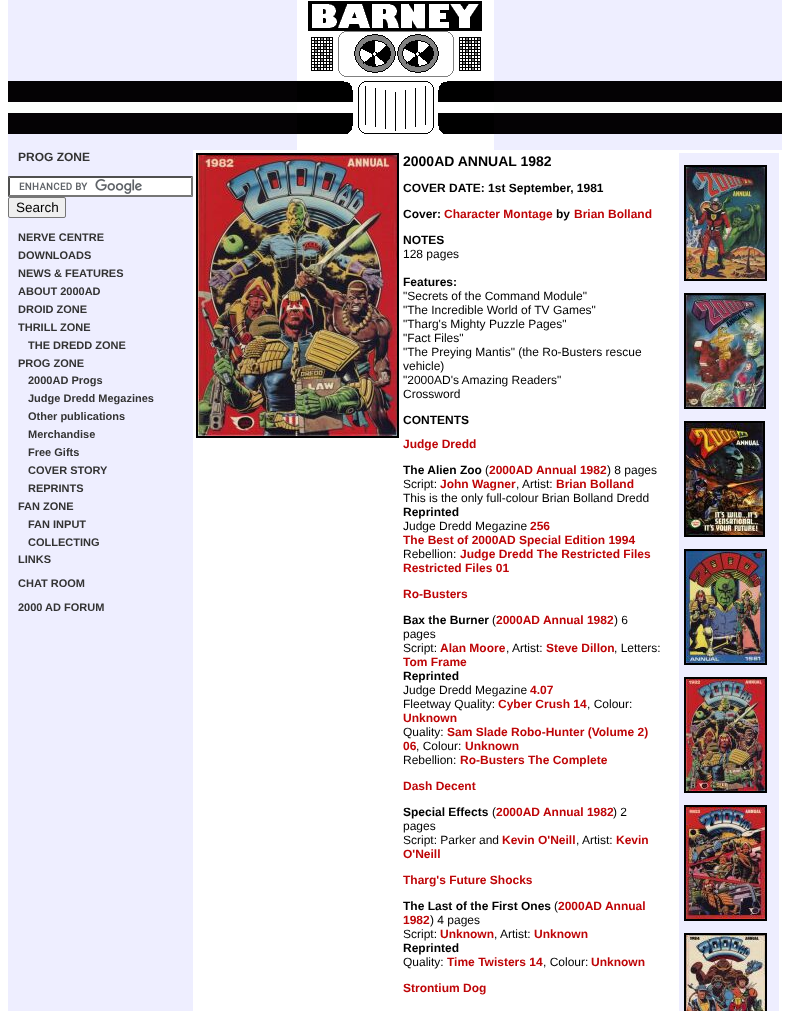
<svg xmlns="http://www.w3.org/2000/svg" width="790" height="1011" viewBox="0 0 790 1011">
  <rect width="100%" height="100%" fill="rgb(255,255,255)"/>
  <rect x="8" y="0" width="774" height="150" fill="rgb(238,238,255)"/>
  <image x="8" y="81" width="774" height="53" href="pic1.png"/>
  <image x="297" y="0" width="197" height="150" href="pic2.png"/>
  <rect x="8" y="150" width="185" height="861" fill="rgb(238,238,255)"/>
  <text x="18" y="161" font-family="Liberation Sans" font-size="12" font-weight="bold" fill="rgb(51,51,51)">PROG ZONE</text>
  <rect x="8" y="176" width="185" height="21" fill="rgb(255,255,255)"/>
  <image x="19" y="179" width="123" height="15" href="pic3.png"/>
  <path d="M8 176H193L191 178H10Z" fill="rgb(79,79,79)"/>
  <path d="M193 176V197L191 195V178Z" fill="rgb(118,118,118)"/>
  <path d="M193 197H8L10 195H191Z" fill="rgb(118,118,118)"/>
  <path d="M8 197V176L10 178V195Z" fill="rgb(79,79,79)"/>
  <rect x="8.5" y="197.5" width="57" height="20" rx="1.5" fill="rgb(239,239,239)" stroke="rgb(118,118,118)"/>
  <text x="16" y="212" font-family="Liberation Sans" font-size="13.5" fill="rgb(0,0,0)">Search</text>
  <g font-family="Liberation Sans" font-size="11" font-weight="bold" fill="rgb(51,51,51)">
    <text>
      <tspan x="18" y="241">NERVE CENTRE</tspan>
      <tspan x="18" y="259">DOWNLOADS</tspan>
      <tspan x="18" y="277">NEWS &amp; FEATURES</tspan>
      <tspan x="18" y="295">ABOUT 2000AD</tspan>
      <tspan x="18" y="313">DROID ZONE</tspan>
      <tspan x="18" y="331">THRILL ZONE</tspan>
    </text>
    <text x="28" y="349">THE DREDD ZONE</text>
    <text x="18" y="367">PROG ZONE</text>
    <text>
      <tspan x="28" y="384">2000AD Progs</tspan>
      <tspan x="28" y="402">Judge Dredd Megazines</tspan>
      <tspan x="28" y="420">Other publications</tspan>
      <tspan x="28" y="438">Merchandise</tspan>
      <tspan x="28" y="456">Free Gifts</tspan>
      <tspan x="28" y="474">COVER STORY</tspan>
      <tspan x="28" y="492">REPRINTS</tspan>
    </text>
    <text x="18" y="510">FAN ZONE</text>
    <text>
      <tspan x="28" y="528">FAN INPUT</tspan>
      <tspan x="28" y="546">COLLECTING</tspan>
    </text>
    <text x="18" y="563">LINKS</text>
    <text x="18" y="587">CHAT ROOM</text>
    <text x="18" y="611">2000 AD FORUM</text>
  </g>
  <rect x="197" y="154" width="201" height="283" fill="none" stroke="rgb(0,0,0)" stroke-width="2"/>
  <image x="198" y="155" width="199" height="281" href="pic4.png"/>
  <text x="403" y="166" font-family="Liberation Sans" font-size="14" font-weight="bold" fill="rgb(0,0,0)">2000AD ANNUAL 1982</text>
  <rect x="679" y="153" width="100" height="858" fill="rgb(238,238,255)"/>
  <rect x="685" y="166" width="81" height="114" fill="none" stroke="rgb(0,0,0)" stroke-width="2"/>
  <image x="686" y="167" width="79" height="112" href="pic5.png"/>
  <rect x="685" y="294" width="80" height="114" fill="none" stroke="rgb(0,0,0)" stroke-width="2"/>
  <image x="686" y="295" width="78" height="112" href="pic6.png"/>
  <rect x="685" y="422" width="79" height="114" fill="none" stroke="rgb(0,0,0)" stroke-width="2"/>
  <image x="686" y="423" width="77" height="112" href="pic7.png"/>
  <rect x="685" y="550" width="81" height="114" fill="none" stroke="rgb(0,0,0)" stroke-width="2"/>
  <image x="686" y="551" width="79" height="112" href="pic8.png"/>
  <rect x="685" y="678" width="81" height="114" fill="none" stroke="rgb(0,0,0)" stroke-width="2"/>
  <image x="686" y="679" width="79" height="112" href="pic9.png"/>
  <rect x="685" y="806" width="81" height="114" fill="none" stroke="rgb(0,0,0)" stroke-width="2"/>
  <image x="686" y="807" width="79" height="112" href="pic10.png"/>
  <rect x="685" y="934" width="81" height="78" fill="none" stroke="rgb(0,0,0)" stroke-width="2"/>
  <image x="686" y="935" width="79" height="76" href="pic11.png"/>
  <g font-family="Liberation Sans" font-size="12" font-weight="bold" fill="rgb(0,0,0)">
    <text x="403" y="192">COVER DATE: 1st September, 1981</text>
    <text x="403" y="218">Cover:</text>
  </g>
  <text x="444" y="218" font-family="Liberation Sans" font-size="12" font-weight="bold" fill="rgb(190,5,7)">Character Montage</text>
  <text x="556" y="218" font-family="Liberation Sans" font-size="12" font-weight="bold" fill="rgb(0,0,0)">by</text>
  <text x="574" y="218" font-family="Liberation Sans" font-size="12" font-weight="bold" fill="rgb(190,5,7)">Brian Bolland</text>
  <text x="403" y="244" font-family="Liberation Sans" font-size="12" font-weight="bold" fill="rgb(0,0,0)">NOTES</text>
  <text x="403" y="258" font-family="Liberation Sans" font-size="12" fill="rgb(0,0,0)">128 pages</text>
  <text x="403" y="286" font-family="Liberation Sans" font-size="12" font-weight="bold" fill="rgb(0,0,0)">Features:</text>
  <g font-family="Liberation Sans" font-size="12" fill="rgb(0,0,0)">
    <text>
      <tspan x="403" y="300">"Secrets of the Command Module"</tspan>
      <tspan x="403" y="314">"The Incredible World of TV Games"</tspan>
      <tspan x="403" y="328">"Tharg's Mighty Puzzle Pages"</tspan>
      <tspan x="403" y="342">"Fact Files"</tspan>
      <tspan x="403" y="356">"The Preying Mantis" (the Ro-Busters rescue</tspan>
      <tspan x="403" y="370">vehicle)</tspan>
      <tspan x="403" y="384">"2000AD's Amazing Readers"</tspan>
      <tspan x="403" y="398">Crossword</tspan>
    </text>
  </g>
  <text x="403" y="424" font-family="Liberation Sans" font-size="12" font-weight="bold" fill="rgb(0,0,0)">CONTENTS</text>
  <text x="403" y="448" font-family="Liberation Sans" font-size="12" font-weight="bold" fill="rgb(190,5,7)">Judge Dredd</text>
  <text x="403" y="474" font-family="Liberation Sans" font-size="12" font-weight="bold" fill="rgb(0,0,0)">The Alien Zoo</text>
  <text x="485" y="474" font-family="Liberation Sans" font-size="12" fill="rgb(0,0,0)">(</text>
  <text x="489" y="474" font-family="Liberation Sans" font-size="12" font-weight="bold" fill="rgb(190,5,7)">2000AD Annual 1982</text>
  <g font-family="Liberation Sans" font-size="12" fill="rgb(0,0,0)">
    <text x="607" y="474">) 8 pages</text>
    <text x="403" y="488">Script:</text>
  </g>
  <text x="440" y="488" font-family="Liberation Sans" font-size="12" font-weight="bold" fill="rgb(190,5,7)">John Wagner</text>
  <g font-family="Liberation Sans" font-size="12" fill="rgb(0,0,0)">
    <text x="516" y="488">,</text>
    <text x="522" y="488">Artist:</text>
  </g>
  <text x="556" y="488" font-family="Liberation Sans" font-size="12" font-weight="bold" fill="rgb(190,5,7)">Brian Bolland</text>
  <text x="403" y="502" font-family="Liberation Sans" font-size="12" fill="rgb(0,0,0)">This is the only full-colour Brian Bolland Dredd</text>
  <text x="403" y="516" font-family="Liberation Sans" font-size="12" font-weight="bold" fill="rgb(0,0,0)">Reprinted</text>
  <text x="403" y="530" font-family="Liberation Sans" font-size="12" fill="rgb(0,0,0)">Judge Dredd Megazine</text>
  <g font-family="Liberation Sans" font-size="12" font-weight="bold" fill="rgb(190,5,7)">
    <text x="530" y="530">256</text>
    <text x="403" y="544">The Best of 2000AD Special Edition 1994</text>
  </g>
  <text x="403" y="558" font-family="Liberation Sans" font-size="12" fill="rgb(0,0,0)">Rebellion:</text>
  <g font-family="Liberation Sans" font-size="12" font-weight="bold" fill="rgb(190,5,7)">
    <text x="460" y="558">Judge Dredd The Restricted Files</text>
    <text x="403" y="572">Restricted Files 01</text>
    <text x="403" y="598">Ro-Busters</text>
  </g>
  <text x="403" y="624" font-family="Liberation Sans" font-size="12" font-weight="bold" fill="rgb(0,0,0)">Bax the Burner</text>
  <text x="492" y="624" font-family="Liberation Sans" font-size="12" fill="rgb(0,0,0)">(</text>
  <text x="496" y="624" font-family="Liberation Sans" font-size="12" font-weight="bold" fill="rgb(190,5,7)">2000AD Annual 1982</text>
  <g font-family="Liberation Sans" font-size="12" fill="rgb(0,0,0)">
    <text x="614" y="624">) 6</text>
    <text>
      <tspan x="403" y="638">pages</tspan>
      <tspan x="403" y="652">Script:</tspan>
    </text>
  </g>
  <text x="440" y="652" font-family="Liberation Sans" font-size="12" font-weight="bold" fill="rgb(190,5,7)">Alan Moore</text>
  <g font-family="Liberation Sans" font-size="12" fill="rgb(0,0,0)">
    <text x="506" y="652">,</text>
    <text x="512" y="652">Artist:</text>
  </g>
  <text x="546" y="652" font-family="Liberation Sans" font-size="12" font-weight="bold" fill="rgb(190,5,7)">Steve Dillon</text>
  <text x="614" y="652" font-family="Liberation Sans" font-size="12" fill="rgb(0,0,0)">, Letters:</text>
  <text x="403" y="666" font-family="Liberation Sans" font-size="12" font-weight="bold" fill="rgb(190,5,7)">Tom Frame</text>
  <text x="403" y="680" font-family="Liberation Sans" font-size="12" font-weight="bold" fill="rgb(0,0,0)">Reprinted</text>
  <text x="403" y="694" font-family="Liberation Sans" font-size="12" fill="rgb(0,0,0)">Judge Dredd Megazine</text>
  <text x="530" y="694" font-family="Liberation Sans" font-size="12" font-weight="bold" fill="rgb(190,5,7)">4.07</text>
  <text x="403" y="708" font-family="Liberation Sans" font-size="12" fill="rgb(0,0,0)">Fleetway Quality:</text>
  <text x="498" y="708" font-family="Liberation Sans" font-size="12" font-weight="bold" fill="rgb(190,5,7)">Cyber Crush 14</text>
  <text x="587" y="708" font-family="Liberation Sans" font-size="12" fill="rgb(0,0,0)">, Colour:</text>
  <text x="403" y="722" font-family="Liberation Sans" font-size="12" font-weight="bold" fill="rgb(190,5,7)">Unknown</text>
  <text x="403" y="736" font-family="Liberation Sans" font-size="12" fill="rgb(0,0,0)">Quality:</text>
  <g font-family="Liberation Sans" font-size="12" font-weight="bold" fill="rgb(190,5,7)">
    <text x="447" y="736">Sam Slade Robo-Hunter (Volume 2)</text>
    <text x="403" y="750">06</text>
  </g>
  <text x="416" y="750" font-family="Liberation Sans" font-size="12" fill="rgb(0,0,0)">, Colour:</text>
  <text x="465" y="750" font-family="Liberation Sans" font-size="12" font-weight="bold" fill="rgb(190,5,7)">Unknown</text>
  <text x="403" y="764" font-family="Liberation Sans" font-size="12" fill="rgb(0,0,0)">Rebellion:</text>
  <g font-family="Liberation Sans" font-size="12" font-weight="bold" fill="rgb(190,5,7)">
    <text x="460" y="764">Ro-Busters The Complete</text>
    <text x="403" y="790">Dash Decent</text>
  </g>
  <text x="403" y="816" font-family="Liberation Sans" font-size="12" font-weight="bold" fill="rgb(0,0,0)">Special Effects</text>
  <text x="492" y="816" font-family="Liberation Sans" font-size="12" fill="rgb(0,0,0)">(</text>
  <text x="496" y="816" font-family="Liberation Sans" font-size="12" font-weight="bold" fill="rgb(190,5,7)">2000AD Annual 1982</text>
  <g font-family="Liberation Sans" font-size="12" fill="rgb(0,0,0)">
    <text x="613" y="816">) 2</text>
    <text>
      <tspan x="403" y="830">pages</tspan>
      <tspan x="403" y="844">Script: Parker and</tspan>
    </text>
  </g>
  <text x="502" y="844" font-family="Liberation Sans" font-size="12" font-weight="bold" fill="rgb(190,5,7)">Kevin O'Neill</text>
  <g font-family="Liberation Sans" font-size="12" fill="rgb(0,0,0)">
    <text x="576" y="844">,</text>
    <text x="582" y="844">Artist:</text>
  </g>
  <g font-family="Liberation Sans" font-size="12" font-weight="bold" fill="rgb(190,5,7)">
    <text x="616" y="844">Kevin</text>
    <text x="403" y="858">O'Neill</text>
    <text x="403" y="884">Tharg's Future Shocks</text>
  </g>
  <text x="403" y="910" font-family="Liberation Sans" font-size="12" font-weight="bold" fill="rgb(0,0,0)">The Last of the First Ones</text>
  <text x="554" y="910" font-family="Liberation Sans" font-size="12" fill="rgb(0,0,0)">(</text>
  <g font-family="Liberation Sans" font-size="12" font-weight="bold" fill="rgb(190,5,7)">
    <text x="558" y="910">2000AD Annual</text>
    <text x="403" y="924">1982</text>
  </g>
  <g font-family="Liberation Sans" font-size="12" fill="rgb(0,0,0)">
    <text x="430" y="924">) 4 pages</text>
    <text x="403" y="938">Script:</text>
  </g>
  <text x="440" y="938" font-family="Liberation Sans" font-size="12" font-weight="bold" fill="rgb(190,5,7)">Unknown</text>
  <g font-family="Liberation Sans" font-size="12" fill="rgb(0,0,0)">
    <text x="494" y="938">,</text>
    <text x="500" y="938">Artist:</text>
  </g>
  <text x="534" y="938" font-family="Liberation Sans" font-size="12" font-weight="bold" fill="rgb(190,5,7)">Unknown</text>
  <text x="403" y="952" font-family="Liberation Sans" font-size="12" font-weight="bold" fill="rgb(0,0,0)">Reprinted</text>
  <text x="403" y="966" font-family="Liberation Sans" font-size="12" fill="rgb(0,0,0)">Quality:</text>
  <text x="447" y="966" font-family="Liberation Sans" font-size="12" font-weight="bold" fill="rgb(190,5,7)">Time Twisters 14</text>
  <text x="543" y="966" font-family="Liberation Sans" font-size="12" fill="rgb(0,0,0)">, Colour:</text>
  <g font-family="Liberation Sans" font-size="12" font-weight="bold" fill="rgb(190,5,7)">
    <text x="591" y="966">Unknown</text>
    <text x="403" y="992">Strontium Dog</text>
  </g>
</svg>
